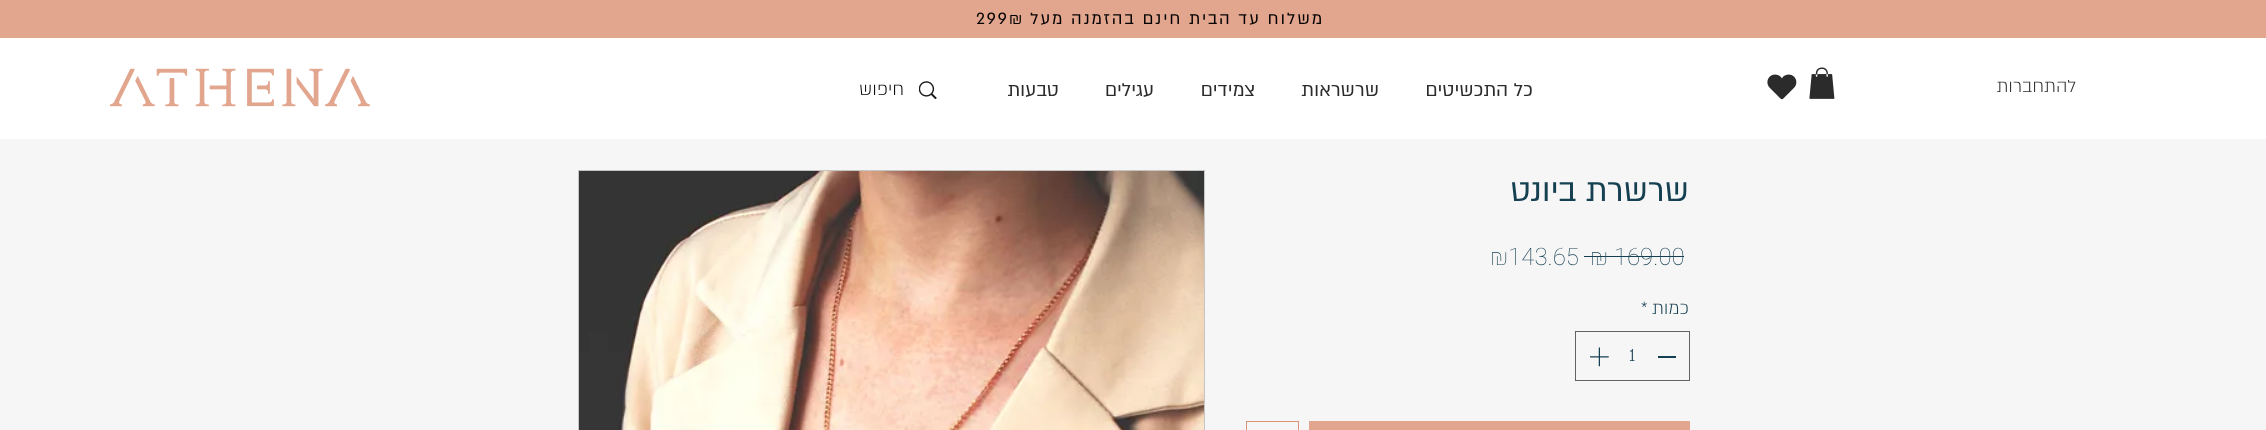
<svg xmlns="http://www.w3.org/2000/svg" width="2266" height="430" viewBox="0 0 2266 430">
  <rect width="100%" height="100%" fill="rgb(246,246,246)"/>
  <rect x="0" y="38" width="2266" height="101" fill="rgb(255,255,255)"/>
  <text x="2076" y="92" font-family="'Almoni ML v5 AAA'" font-size="20" font-weight="300" direction="rtl" fill="rgb(43,43,43)">להתחברות</text>
  <rect x="0" y="0" width="2266" height="38" fill="rgb(226,165,141)"/>
  <text x="1324" y="24" font-family="'Almoni ML v5 AAA'" font-size="18.75" letter-spacing="1.9" direction="rtl" fill="rgb(0,0,0)">משלוח עד הבית חינם בהזמנה מעל</text>
  <text x="976" y="24" font-family="'Almoni ML v5 AAA'" font-size="18.75" letter-spacing="1.9" fill="rgb(0,0,0)">299₪</text>
  <image x="1809" y="67" width="26" height="32" href="pic1.png"/>
  <image x="1767" y="74" width="30" height="26" href="pic2.png"/>
  <image x="919" y="81" width="18" height="18" href="pic3.png"/>
  <text x="904" y="95" font-family="'Almoni ML v5 AAA'" font-size="20" font-weight="300" direction="rtl" fill="rgb(0,0,0)">חיפוש</text>
  <image x="110" y="68" width="260" height="39" href="pic4.png"/>
  <g font-family="'Almoni ML v5 AAA'" font-size="21.25" direction="rtl" fill="rgb(43,43,43)">
    <text x="1533" y="96">כל התכשיטים</text>
    <text x="1379" y="96">שרשראות</text>
    <text x="1255" y="96">צמידים</text>
    <text x="1154" y="96">עגילים</text>
    <text x="1059" y="96">טבעות</text>
  </g>
  <text x="1689" y="201" font-family="'Almoni ML v5 AAA'" font-size="36.25" direction="rtl" fill="rgb(21,64,81)">שרשרת ביונט</text>
  <text x="1590" y="265" font-family="Roboto" font-size="24" font-weight="100" fill="rgb(21,64,81)">₪ 169.00</text>
  <rect x="1584" y="256" width="100" height="1" fill="rgb(21,64,81)"/>
  <text x="1490" y="265" font-family="Roboto" font-size="24" font-weight="100" fill="rgb(21,64,81)">₪143.65</text>
  <text x="1689" y="314" font-family="'Almoni ML v5 AAA'" font-size="20" font-weight="300" direction="rtl" fill="rgb(21,64,81)">כמות</text>
  <text x="1641" y="314" font-family="'Almoni ML v5 AAA'" font-size="20" font-weight="300" fill="rgb(21,64,81)">*</text>
  <rect x="1575.5" y="331.5" width="114" height="49" fill="none" stroke="rgb(98,98,98)"/>
  <rect x="1658" y="356" width="18" height="2" fill="rgb(21,64,81)"/>
  <text x="1629" y="361" font-family="'Almoni ML v5 AAA'" font-size="20" font-weight="300" fill="rgb(21,64,81)">1</text>
  <image x="1590" y="347" width="19" height="20" href="pic5.png"/>
  <rect x="1309" y="421" width="381" height="9" fill="rgb(226,165,141)"/>
  <rect x="1246.5" y="421.5" width="52" height="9" fill="none" stroke="rgb(219,147,118)"/>
  <rect x="578.5" y="170.5" width="626" height="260" fill="none" stroke="rgb(197,197,197)"/>
  <image x="579" y="171" width="625" height="259" href="pic6.png"/>
</svg>
